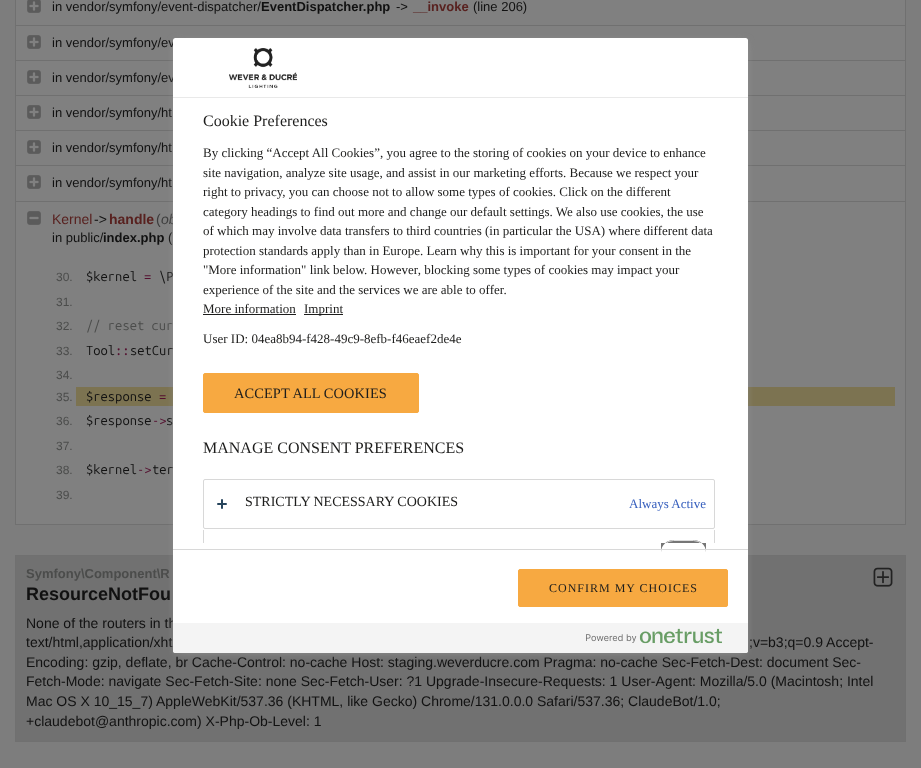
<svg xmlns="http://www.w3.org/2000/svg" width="921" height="768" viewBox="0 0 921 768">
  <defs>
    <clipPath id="clip1"><rect x="203" y="99" width="542" height="444"/></clipPath>
  </defs>
  <rect width="100%" height="100%" fill="rgb(125,125,125)"/>
  <rect x="15" y="-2" width="891" height="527" fill="rgba(64,64,64,0.2)" filter="blur(0.5px)"/>
  <rect x="15.5" y="-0.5" width="890" height="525" fill="rgb(128,128,128)" stroke="rgb(112,112,112)"/>
  <image x="27" y="0" width="14" height="13" href="pic1.png"/>
  <text x="52" y="11" font-family="Liberation Sans" font-size="13" fill="rgb(17,17,17)">in vendor/symfony/event-dispatcher/</text>
  <text x="261" y="11" font-family="Liberation Sans" font-size="13" font-weight="bold" fill="rgb(17,17,17)">EventDispatcher.php</text>
  <text x="396" y="11" font-family="Liberation Sans" font-size="13" fill="rgb(17,17,17)">-&gt;</text>
  <text x="413" y="11" font-family="Liberation Sans" font-size="13" font-weight="bold" fill="rgb(88,33,31)">__invoke</text>
  <text x="473" y="11" font-family="Liberation Sans" font-size="13" fill="rgb(17,17,17)">(line 206)</text>
  <rect x="16" y="25" width="889" height="1" fill="rgb(112,112,112)"/>
  <image x="27" y="35" width="14" height="14" href="pic2.png"/>
  <text x="52" y="47" font-family="Liberation Sans" font-size="13" fill="rgb(17,17,17)">in vendor/symfony/ev</text>
  <rect x="16" y="60" width="889" height="1" fill="rgb(112,112,112)"/>
  <image x="27" y="70" width="14" height="14" href="pic2.png"/>
  <text x="52" y="82" font-family="Liberation Sans" font-size="13" fill="rgb(17,17,17)">in vendor/symfony/ev</text>
  <rect x="16" y="95" width="889" height="1" fill="rgb(112,112,112)"/>
  <image x="27" y="105" width="14" height="14" href="pic2.png"/>
  <text x="52" y="117" font-family="Liberation Sans" font-size="13" fill="rgb(17,17,17)">in vendor/symfony/ht</text>
  <rect x="16" y="130" width="889" height="1" fill="rgb(112,112,112)"/>
  <image x="27" y="140" width="14" height="14" href="pic2.png"/>
  <text x="52" y="152" font-family="Liberation Sans" font-size="13" fill="rgb(17,17,17)">in vendor/symfony/ht</text>
  <rect x="16" y="165" width="889" height="1" fill="rgb(112,112,112)"/>
  <image x="27" y="175" width="14" height="14" href="pic2.png"/>
  <text x="52" y="187" font-family="Liberation Sans" font-size="13" fill="rgb(17,17,17)">in vendor/symfony/ht</text>
  <rect x="16" y="201" width="889" height="1" fill="rgb(112,112,112)"/>
  <image x="27" y="211" width="14" height="14" href="pic3.png"/>
  <text x="52" y="224" font-family="Liberation Sans" font-size="14" fill="rgb(88,33,31)">Kernel</text>
  <text x="94" y="224" font-family="Liberation Sans" font-size="14" fill="rgb(17,17,17)">-&gt;</text>
  <text x="109" y="224" font-family="Liberation Sans" font-size="14" font-weight="bold" fill="rgb(88,33,31)">handle</text>
  <text x="156" y="224" font-family="Liberation Sans" font-size="14" fill="rgb(60,60,60)">(</text>
  <text x="161" y="224" font-family="Liberation Sans" font-size="14" font-style="italic" fill="rgb(60,60,60)">ob</text>
  <text x="52" y="242" font-family="Liberation Sans" font-size="13" fill="rgb(17,17,17)">in public/</text>
  <text x="103" y="242" font-family="Liberation Sans" font-size="13" font-weight="bold" fill="rgb(17,17,17)">index.php</text>
  <text x="168" y="242" font-family="Liberation Sans" font-size="13" fill="rgb(17,17,17)">(</text>
  <text x="56" y="281" font-family="Liberation Sans" font-size="12" fill="rgb(75,76,75)">30.</text>
  <text x="86" y="281" font-family="Ubuntu Mono" font-size="13" fill="rgb(17,17,17)">$kernel</text>
  <text x="144" y="281" font-family="Ubuntu Mono" font-size="13" fill="rgb(84,15,47)">=</text>
  <text x="159" y="281" font-family="Ubuntu Mono" font-size="13" fill="rgb(17,17,17)">\P</text>
  <g font-family="Liberation Sans" font-size="12" fill="rgb(75,76,75)">
    <text x="56" y="306">31.</text>
    <text x="56" y="330">32.</text>
  </g>
  <text x="86" y="330" font-family="Ubuntu Mono" font-size="13" fill="rgb(75,76,75)">// reset cur</text>
  <text x="56" y="355" font-family="Liberation Sans" font-size="12" fill="rgb(75,76,75)">33.</text>
  <text x="86" y="355" font-family="Ubuntu Mono" font-size="13" fill="rgb(17,17,17)">Tool</text>
  <text x="115" y="355" font-family="Ubuntu Mono" font-size="13" fill="rgb(84,15,47)">::</text>
  <text x="130" y="355" font-family="Ubuntu Mono" font-size="13" fill="rgb(17,17,17)">setCur</text>
  <text x="56" y="379" font-family="Liberation Sans" font-size="12" fill="rgb(75,76,75)">34.</text>
  <rect x="76" y="387" width="819" height="19" fill="rgb(124,115,81)"/>
  <text x="56" y="401" font-family="Liberation Sans" font-size="12" fill="rgb(75,76,75)">35.</text>
  <text x="86" y="401" font-family="Ubuntu Mono" font-size="13" fill="rgb(17,17,17)">$response</text>
  <text x="159" y="401" font-family="Ubuntu Mono" font-size="13" fill="rgb(84,15,47)">=</text>
  <text x="56" y="425" font-family="Liberation Sans" font-size="12" fill="rgb(75,76,75)">36.</text>
  <text x="86" y="425" font-family="Ubuntu Mono" font-size="13" fill="rgb(17,17,17)">$response</text>
  <text x="152" y="425" font-family="Ubuntu Mono" font-size="13" fill="rgb(84,15,47)">-&gt;</text>
  <text x="166" y="425" font-family="Ubuntu Mono" font-size="13" fill="rgb(17,17,17)">s</text>
  <g font-family="Liberation Sans" font-size="12" fill="rgb(75,76,75)">
    <text x="56" y="450">37.</text>
    <text x="56" y="474">38.</text>
  </g>
  <text x="86" y="474" font-family="Ubuntu Mono" font-size="13" fill="rgb(17,17,17)">$kernel</text>
  <text x="137" y="474" font-family="Ubuntu Mono" font-size="13" fill="rgb(84,15,47)">-&gt;</text>
  <text x="152" y="474" font-family="Ubuntu Mono" font-size="13" fill="rgb(17,17,17)">ter</text>
  <text x="56" y="499" font-family="Liberation Sans" font-size="12" fill="rgb(75,76,75)">39.</text>
  <rect x="15" y="555" width="891" height="187" fill="rgba(64,64,64,0.2)" filter="blur(0.5px)"/>
  <rect x="15.5" y="555.5" width="890" height="186" fill="none" stroke="rgb(112,112,112)"/>
  <text x="26" y="578" font-family="Liberation Sans" font-size="13" font-weight="bold" fill="rgb(75,76,75)">Symfony\Component\R</text>
  <text x="26" y="600" font-family="Liberation Sans" font-size="18" font-weight="bold" fill="rgb(17,17,17)">ResourceNotFou</text>
  <image x="873" y="567" width="20" height="20" href="pic4.png"/>
  <g font-family="Liberation Sans" font-size="14" fill="rgb(17,17,17)">
    <text>
      <tspan x="26" y="628">None of the routers in th</tspan>
      <tspan x="26" y="647">text/html,application/xht</tspan>
    </text>
    <text x="749" y="647">;v=b3;q=0.9 Accept-</text>
    <text>
      <tspan x="26" y="667">Encoding: gzip, deflate, br Cache-Control: no-cache Host: staging.weverducre.com Pragma: no-cache Sec-Fetch-Dest: document Sec-</tspan>
      <tspan x="26" y="686">Fetch-Mode: navigate Sec-Fetch-Site: none Sec-Fetch-User: ?1 Upgrade-Insecure-Requests: 1 User-Agent: Mozilla/5.0 (Macintosh; Intel</tspan>
      <tspan x="26" y="706">Mac OS X 10_15_7) AppleWebKit/537.36 (KHTML, like Gecko) Chrome/131.0.0.0 Safari/537.36; ClaudeBot/1.0;</tspan>
      <tspan x="26" y="726">+claudebot@anthropic.com) X-Php-Ob-Level: 1</tspan>
    </text>
  </g>
  <rect x="176" y="43" width="569" height="609" fill="rgb(153,153,153)" filter="blur(5px)"/>
  <rect x="173" y="38" width="575" height="615" rx="2.5" fill="rgb(255,255,255)"/>
  <rect x="173" y="97" width="575" height="1" fill="rgb(233,233,233)"/>
  <image x="229" y="48" width="68" height="40" href="pic5.png"/>
  <text x="203" y="126" font-family="Liberation Serif" font-size="16" fill="rgb(29,29,28)">Cookie Preferences</text>
  <g font-family="Liberation Serif" font-size="13" fill="rgb(29,29,28)">
    <text>
      <tspan x="203" y="157">By clicking “Accept All Cookies”, you agree to the storing of cookies on your device to enhance</tspan>
      <tspan x="203" y="177">site navigation, analyze site usage, and assist in our marketing efforts. Because we respect your</tspan>
      <tspan x="203" y="196">right to privacy, you can choose not to allow some types of cookies. Click on the different</tspan>
      <tspan x="203" y="216">category headings to find out more and change our default settings. We also use cookies, the use</tspan>
      <tspan x="203" y="235">of which may involve data transfers to third countries (in particular the USA) where different data</tspan>
      <tspan x="203" y="255">protection standards apply than in Europe. Learn why this is important for your consent in the</tspan>
      <tspan x="203" y="274">"More information" link below. However, blocking some types of cookies may impact your</tspan>
      <tspan x="203" y="294">experience of the site and the services we are able to offer.</tspan>
      <tspan x="203" y="313">More information</tspan>
    </text>
  </g>
  <rect x="203" y="314" width="93" height="1" fill="rgb(29,29,28)"/>
  <rect x="304" y="314" width="39" height="1" fill="rgb(29,29,28)"/>
  <g font-family="Liberation Serif" font-size="13" fill="rgb(29,29,28)">
    <text x="304" y="313">Imprint</text>
    <text x="203" y="343">User ID: 04ea8b94-f428-49c9-8efb-f46eaef2de4e</text>
  </g>
  <rect x="203.5" y="373.5" width="215" height="39" rx="1.5" fill="rgb(247,169,65)" stroke="rgb(247,169,65)"/>
  <text x="234" y="398" font-family="Liberation Serif" font-size="14.4" letter-spacing="0.1" fill="rgb(29,29,28)">ACCEPT ALL COOKIES</text>
  <text x="203" y="453" font-family="Liberation Serif" font-size="16" fill="rgb(29,29,28)">MANAGE CONSENT PREFERENCES</text>
  <rect x="203.5" y="479.5" width="511" height="49" rx="1.5" fill="none" stroke="rgb(216,216,216)"/>
  <rect x="221" y="499" width="2" height="10" rx="1" fill="rgb(39,69,92)"/>
  <rect x="217" y="503" width="10" height="2" rx="1" fill="rgb(39,69,92)"/>
  <text x="245" y="506" font-family="Liberation Serif" font-size="14" fill="rgb(29,29,28)">STRICTLY NECESSARY COOKIES</text>
  <text x="629" y="508" font-family="Liberation Serif" font-size="13" fill="rgb(56,96,190)">Always Active</text>
  <rect x="714" y="530" width="1" height="13" fill="rgb(216,216,216)"/>
  <rect x="203" y="530" width="1" height="13" fill="rgb(216,216,216)"/>
  <path d="M673.5 540H693.5C700.5 540 706 545.5 706 552.5V543H661V552.5C661 545.5 666.5 540 673.5 540Z" fill="rgb(118,118,118)"/>
  <rect x="173" y="549" width="575" height="1" fill="rgb(216,216,216)"/>
  <g clip-path="url(#clip1)">
    <rect x="661.5" y="540.5" width="44" height="24" rx="12" fill="none" stroke="rgb(221,221,221)"/>
  </g>
  <rect x="518.5" y="569.5" width="209" height="37" rx="1.5" fill="rgb(247,169,65)" stroke="rgb(247,169,65)"/>
  <text x="549" y="592" font-family="Liberation Serif" font-size="12" letter-spacing="1" fill="rgb(29,29,28)">CONFIRM MY CHOICES</text>
  <path d="M173 623H748V650.5C748 652 747 653 745.5 653H175.5C174 653 173 652 173 650.5Z" fill="rgb(244,244,244)"/>
  <image x="586" y="628" width="136" height="16" href="pic6.png"/>
</svg>
